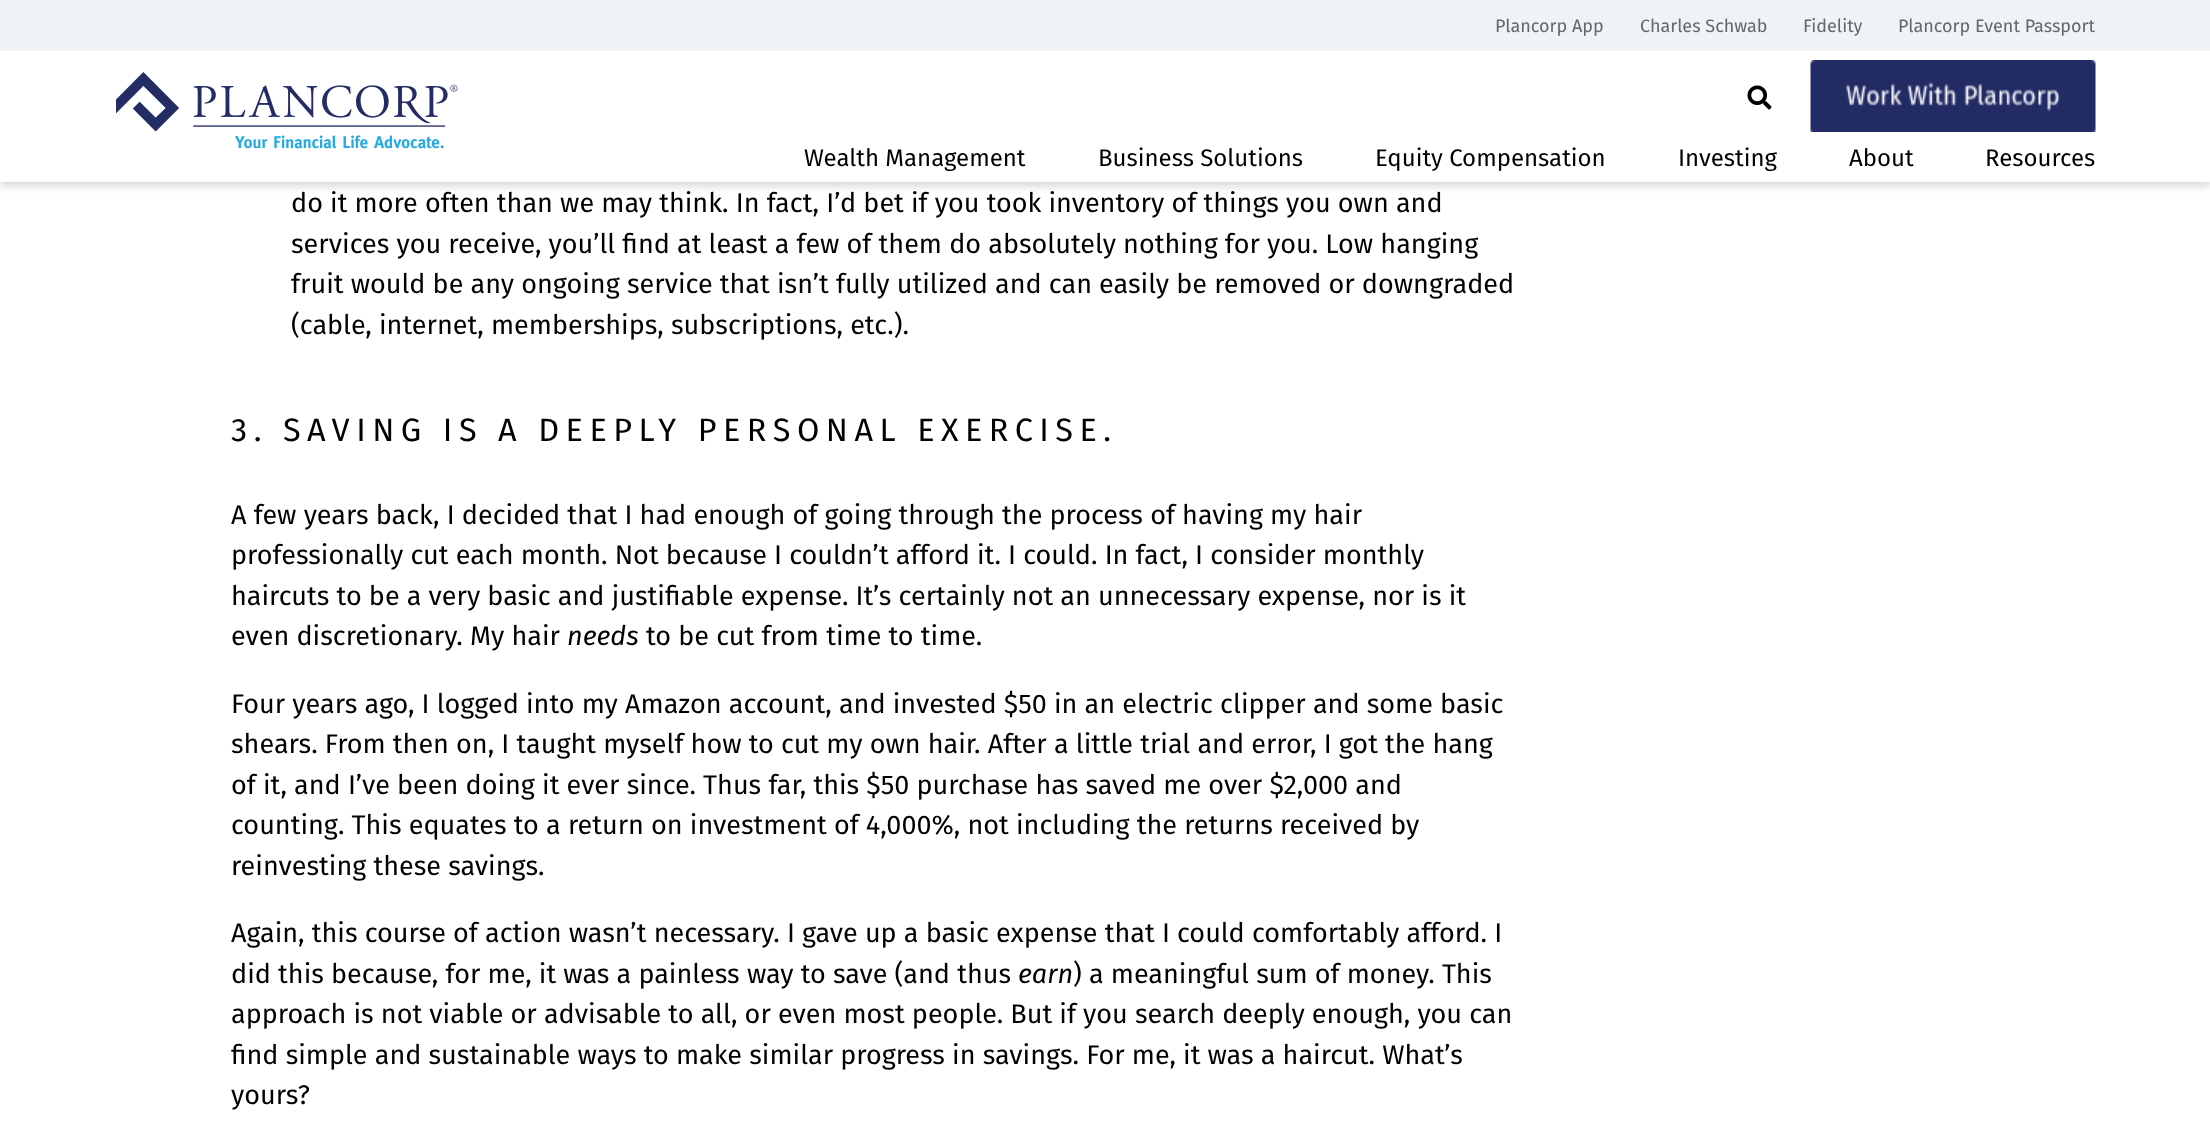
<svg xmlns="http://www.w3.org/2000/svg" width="2210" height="1142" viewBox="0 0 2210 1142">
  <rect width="100%" height="100%" fill="rgb(255,255,255)"/>
  <rect x="0" y="5" width="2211" height="181" fill="rgba(0,0,0,0.16)" filter="blur(4.5px)"/>
  <rect x="0" y="51" width="2210" height="131" fill="rgb(255,255,255)"/>
  <rect x="0" y="0" width="2210" height="51" fill="rgb(238,243,247)"/>
  <g font-family="Fira Sans" font-size="18" fill="rgb(102,102,102)">
    <text x="1495" y="32">Plancorp App</text>
    <text x="1640" y="32">Charles Schwab</text>
    <text x="1803" y="32">Fidelity</text>
    <text x="1898" y="32">Plancorp Event Passport</text>
  </g>
  <image x="116" y="72" width="342" height="77" href="pic1.png"/>
  <image x="1747" y="85" width="25" height="25" href="pic2.png"/>
  <image x="1810" y="60" width="286" height="72" href="pic3.png"/>
  <g font-family="Fira Sans" font-size="24" fill="rgb(0,0,0)">
    <text x="804" y="166">Wealth Management</text>
    <text x="1098" y="166">Business Solutions</text>
    <text x="1375" y="166">Equity Compensation</text>
    <text x="1678" y="166">Investing</text>
    <text x="1849" y="166">About</text>
    <text x="1985" y="166">Resources</text>
  </g>
  <g font-family="Fira Sans" font-size="27" fill="rgb(0,0,0)">
    <text>
      <tspan x="291" y="212">do it more often than we may think. In fact, I’d bet if you took inventory of things you own and</tspan>
      <tspan x="291" y="253">services you receive, you’ll find at least a few of them do absolutely nothing for you. Low hanging</tspan>
      <tspan x="291" y="293">fruit would be any ongoing service that isn’t fully utilized and can easily be removed or downgraded</tspan>
      <tspan x="291" y="334">(cable, internet, memberships, subscriptions, etc.).</tspan>
    </text>
  </g>
  <text x="231" y="441" font-family="Fira Sans" font-size="32.4" letter-spacing="6.5" fill="rgb(0,0,0)">3. SAVING IS A DEEPLY PERSONAL EXERCISE.</text>
  <g font-family="Fira Sans" font-size="27" fill="rgb(0,0,0)">
    <text>
      <tspan x="231" y="524">A few years back, I decided that I had enough of going through the process of having my hair</tspan>
      <tspan x="231" y="564">professionally cut each month. Not because I couldn’t afford it. I could. In fact, I consider monthly</tspan>
      <tspan x="231" y="605">haircuts to be a very basic and justifiable expense. It’s certainly not an unnecessary expense, nor is it</tspan>
      <tspan x="231" y="645">even discretionary. My hair</tspan>
    </text>
  </g>
  <text x="567" y="645" font-family="Fira Sans" font-size="27" font-style="italic" fill="rgb(0,0,0)">needs</text>
  <g font-family="Fira Sans" font-size="27" fill="rgb(0,0,0)">
    <text x="646" y="645">to be cut from time to time.</text>
    <text>
      <tspan x="231" y="713">Four years ago, I logged into my Amazon account, and invested $50 in an electric clipper and some basic</tspan>
      <tspan x="231" y="753">shears. From then on, I taught myself how to cut my own hair. After a little trial and error, I got the hang</tspan>
      <tspan x="231" y="794">of it, and I’ve been doing it ever since. Thus far, this $50 purchase has saved me over $2,000 and</tspan>
      <tspan x="231" y="834">counting. This equates to a return on investment of 4,000%, not including the returns received by</tspan>
      <tspan x="231" y="875">reinvesting these savings.</tspan>
    </text>
    <text>
      <tspan x="231" y="942">Again, this course of action wasn’t necessary. I gave up a basic expense that I could comfortably afford. I</tspan>
      <tspan x="231" y="983">did this because, for me, it was a painless way to save (and thus</tspan>
    </text>
  </g>
  <text x="1018" y="983" font-family="Fira Sans" font-size="27" font-style="italic" fill="rgb(0,0,0)">earn</text>
  <g font-family="Fira Sans" font-size="27" fill="rgb(0,0,0)">
    <text x="1073" y="983">) a meaningful sum of money. This</text>
    <text>
      <tspan x="231" y="1023">approach is not viable or advisable to all, or even most people. But if you search deeply enough, you can</tspan>
      <tspan x="231" y="1064">find simple and sustainable ways to make similar progress in savings. For me, it was a haircut. What’s</tspan>
      <tspan x="231" y="1104">yours?</tspan>
    </text>
  </g>
</svg>
